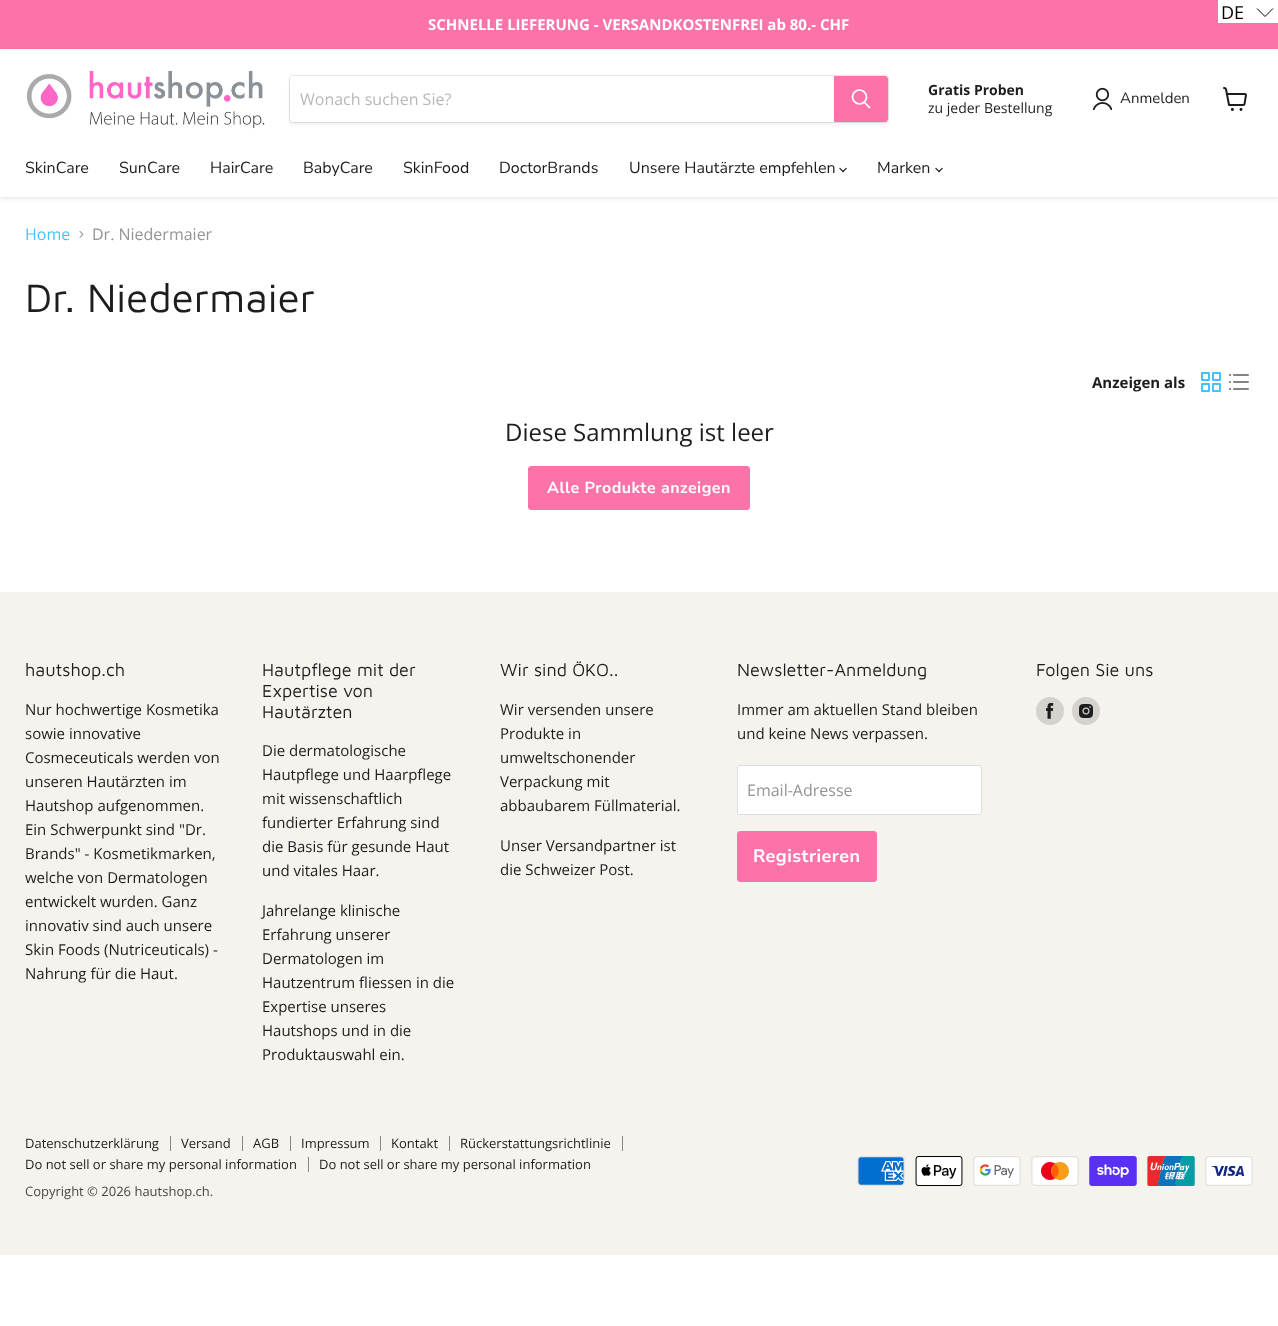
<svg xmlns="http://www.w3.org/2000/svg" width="1278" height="1326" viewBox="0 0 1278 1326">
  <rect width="100%" height="100%" fill="rgb(255,255,255)"/>
  <rect x="0" y="0" width="1278" height="49" fill="rgb(252,115,170)"/>
  <rect x="1218" y="0" width="60" height="23" fill="rgb(255,255,255)"/>
  <text x="1221" y="19" font-family="Open Sans" font-size="18" fill="rgb(0,0,0)">DE</text>
  <path d="M1257 8.5L1265 16.5L1273 8.5" fill="none" stroke="rgb(0,0,0)"/>
  <text x="428" y="30" font-family="Open Sans" font-size="15" font-weight="bold" fill="rgb(255,255,255)">SCHNELLE LIEFERUNG - VERSANDKOSTENFREI ab 80.- CHF</text>
  <rect x="0" y="50" width="1278" height="148" fill="rgba(128,128,128,0.25)" filter="blur(2px)"/>
  <rect x="0" y="49" width="1278" height="148" fill="rgb(255,255,255)"/>
  <image x="26" y="70" width="239" height="59" href="pic1.png"/>
  <rect x="289" y="77" width="600" height="48" rx="4" fill="rgba(128,128,128,0.11)" filter="blur(1.5px)"/>
  <rect x="289.5" y="75.5" width="599" height="47" rx="3.5" fill="none" stroke="rgba(128,128,128,0.2)"/>
  <path d="M293 76H834V122H293C291.5 122 290 120.5 290 119V79C290 77.5 291.5 76 293 76Z" fill="rgb(255,255,255)"/>
  <text x="300" y="105" font-family="Open Sans" font-size="16" fill="rgb(184,184,184)">Wonach suchen Sie?</text>
  <path d="M834.5 76.5H885C886.5 76.5 887.5 77.5 887.5 79V119C887.5 120.5 886.5 121.5 885 121.5H834.5Z" fill="rgb(252,115,170)" stroke="rgb(252,115,170)"/>
  <path d="M869.5 107.5L864.5 102.5" fill="none" stroke="rgb(255,255,255)" stroke-width="1.7" stroke-linecap="round"/>
  <circle cx="859.5" cy="97" r="7" fill="none" stroke="rgb(255,255,255)" stroke-width="1.7"/>
  <text x="928" y="95" font-family="Open Sans" font-size="14" font-weight="bold" fill="rgb(29,29,29)">Gratis Proben</text>
  <text x="928" y="113" font-family="Open Sans" font-size="14" fill="rgb(29,29,29)">zu jeder Bestellung</text>
  <image x="1092" y="87" width="20" height="24" href="pic2.png"/>
  <text x="1120" y="103" font-family="Nunito Sans" font-size="15" fill="rgb(29,29,29)">Anmelden</text>
  <image x="1223" y="87" width="24" height="24" href="pic3.png"/>
  <g font-family="Nunito Sans" font-size="16" fill="rgb(29,29,29)">
    <text x="25" y="173">SkinCare</text>
    <text x="119" y="173">SunCare</text>
    <text x="210" y="173">HairCare</text>
    <text x="303" y="173">BabyCare</text>
    <text x="403" y="173">SkinFood</text>
    <text x="499" y="173">DoctorBrands</text>
    <text x="629" y="173">Unsere Hautärzte empfehlen</text>
  </g>
  <image x="839" y="167" width="8" height="6" href="pic4.png"/>
  <text x="877" y="173" font-family="Nunito Sans" font-size="16" fill="rgb(29,29,29)">Marken</text>
  <image x="935" y="167" width="8" height="6" href="pic4.png"/>
  <text x="25" y="240" font-family="Open Sans" font-size="16" fill="rgb(67,196,255)">Home</text>
  <image x="79" y="231" width="5" height="7" href="pic5.png"/>
  <text x="92" y="240" font-family="Open Sans" font-size="16" fill="rgb(148,148,148)">Dr. Niedermaier</text>
  <text x="25" y="312" font-family="Maven Pro" font-size="40.75" fill="rgb(29,29,29)">Dr. Niedermaier</text>
  <text x="1092" y="388" font-family="Open Sans" font-size="15" font-weight="bold" fill="rgb(29,29,29)">Anzeigen als</text>
  <image x="1201" y="372" width="20" height="20" href="pic6.png"/>
  <image x="1229" y="374" width="20" height="16" href="pic7.png"/>
  <text x="505" y="441" font-family="Open Sans" font-size="24" fill="rgb(29,29,29)">Diese Sammlung ist leer</text>
  <rect x="528.5" y="466.5" width="221" height="43" rx="2.5" fill="rgb(252,115,170)" stroke="rgb(252,115,170)"/>
  <text x="547" y="493" font-family="Nunito Sans" font-size="16" font-weight="bold" letter-spacing="0.5" fill="rgb(255,255,255)">Alle Produkte anzeigen</text>
  <rect x="0" y="592" width="1278" height="663" fill="rgb(245,243,237)"/>
  <text x="25" y="676" font-family="Maven Pro" font-size="18" fill="rgb(29,29,29)">hautshop.ch</text>
  <g font-family="Open Sans" font-size="15" fill="rgb(29,29,29)">
    <text>
      <tspan x="25" y="715">Nur hochwertige Kosmetika</tspan>
      <tspan x="25" y="739">sowie innovative</tspan>
      <tspan x="25" y="763">Cosmeceuticals werden von</tspan>
      <tspan x="25" y="787">unseren Hautärzten im</tspan>
      <tspan x="25" y="811">Hautshop aufgenommen.</tspan>
      <tspan x="25" y="835">Ein Schwerpunkt sind "Dr.</tspan>
      <tspan x="25" y="859">Brands" - Kosmetikmarken,</tspan>
      <tspan x="25" y="883">welche von Dermatologen</tspan>
      <tspan x="25" y="907">entwickelt wurden. Ganz</tspan>
      <tspan x="25" y="931">innovativ sind auch unsere</tspan>
      <tspan x="25" y="955">Skin Foods (Nutriceuticals) -</tspan>
      <tspan x="25" y="979">Nahrung für die Haut.</tspan>
    </text>
  </g>
  <g font-family="Maven Pro" font-size="18" fill="rgb(29,29,29)">
    <text>
      <tspan x="262" y="676">Hautpflege mit der</tspan>
      <tspan x="262" y="697">Expertise von</tspan>
      <tspan x="262" y="718">Hautärzten</tspan>
    </text>
  </g>
  <g font-family="Open Sans" font-size="15" fill="rgb(29,29,29)">
    <text>
      <tspan x="262" y="756">Die dermatologische</tspan>
      <tspan x="262" y="780">Hautpflege und Haarpflege</tspan>
      <tspan x="262" y="804">mit wissenschaftlich</tspan>
      <tspan x="262" y="828">fundierter Erfahrung sind</tspan>
      <tspan x="262" y="852">die Basis für gesunde Haut</tspan>
      <tspan x="262" y="876">und vitales Haar.</tspan>
    </text>
    <text>
      <tspan x="262" y="916">Jahrelange klinische</tspan>
      <tspan x="262" y="940">Erfahrung unserer</tspan>
      <tspan x="262" y="964">Dermatologen im</tspan>
      <tspan x="262" y="988">Hautzentrum fliessen in die</tspan>
      <tspan x="262" y="1012">Expertise unseres</tspan>
      <tspan x="262" y="1036">Hautshops und in die</tspan>
      <tspan x="262" y="1060">Produktauswahl ein.</tspan>
    </text>
  </g>
  <text x="500" y="676" font-family="Maven Pro" font-size="18" fill="rgb(29,29,29)">Wir sind ÖKO..</text>
  <g font-family="Open Sans" font-size="15" fill="rgb(29,29,29)">
    <text>
      <tspan x="500" y="715">Wir versenden unsere</tspan>
      <tspan x="500" y="739">Produkte in</tspan>
      <tspan x="500" y="763">umweltschonender</tspan>
      <tspan x="500" y="787">Verpackung mit</tspan>
      <tspan x="500" y="811">abbaubarem Füllmaterial.</tspan>
    </text>
    <text>
      <tspan x="500" y="851">Unser Versandpartner ist</tspan>
      <tspan x="500" y="875">die Schweizer Post.</tspan>
    </text>
  </g>
  <text x="737" y="676" font-family="Maven Pro" font-size="18" fill="rgb(29,29,29)">Newsletter-Anmeldung</text>
  <g font-family="Open Sans" font-size="15" fill="rgb(29,29,29)">
    <text>
      <tspan x="737" y="715">Immer am aktuellen Stand bleiben</tspan>
      <tspan x="737" y="739">und keine News verpassen.</tspan>
    </text>
  </g>
  <rect x="737.5" y="765.5" width="244" height="49" rx="2.5" fill="rgb(255,255,255)" stroke="rgb(221,221,221)"/>
  <text x="747" y="796" font-family="Open Sans" font-size="16" fill="rgb(148,148,148)">Email-Adresse</text>
  <rect x="737.5" y="831.5" width="139" height="50" rx="2.5" fill="rgb(252,115,170)" stroke="rgb(252,115,170)"/>
  <text x="753" y="862" font-family="Nunito Sans" font-size="18" font-weight="bold" letter-spacing="0.5" fill="rgb(255,255,255)">Registrieren</text>
  <text x="1036" y="676" font-family="Maven Pro" font-size="18" fill="rgb(29,29,29)">Folgen Sie uns</text>
  <circle cx="1050" cy="711" r="14" fill="rgb(213,211,206)"/>
  <image x="1046" y="703" width="8" height="16" href="pic8.png"/>
  <circle cx="1086" cy="711" r="14" fill="rgb(213,211,206)"/>
  <image x="1079" y="704" width="14" height="14" href="pic9.png"/>
  <rect x="170" y="1136" width="1" height="15" fill="rgb(137,136,133)"/>
  <text x="25" y="1148" font-family="Open Sans" font-size="13" fill="rgb(29,29,29)">Datenschutzerklärung</text>
  <rect x="242" y="1136" width="1" height="15" fill="rgb(137,136,133)"/>
  <text x="181" y="1148" font-family="Open Sans" font-size="13" fill="rgb(29,29,29)">Versand</text>
  <rect x="290" y="1136" width="1" height="15" fill="rgb(137,136,133)"/>
  <text x="253" y="1148" font-family="Open Sans" font-size="13" fill="rgb(29,29,29)">AGB</text>
  <rect x="380" y="1136" width="1" height="15" fill="rgb(137,136,133)"/>
  <text x="301" y="1148" font-family="Open Sans" font-size="13" fill="rgb(29,29,29)">Impressum</text>
  <rect x="449" y="1136" width="1" height="15" fill="rgb(137,136,133)"/>
  <text x="391" y="1148" font-family="Open Sans" font-size="13" fill="rgb(29,29,29)">Kontakt</text>
  <rect x="622" y="1136" width="1" height="15" fill="rgb(137,136,133)"/>
  <text x="460" y="1148" font-family="Open Sans" font-size="13" fill="rgb(29,29,29)">Rückerstattungsrichtlinie</text>
  <rect x="308" y="1157" width="1" height="15" fill="rgb(137,136,133)"/>
  <g font-family="Open Sans" font-size="13" fill="rgb(29,29,29)">
    <text x="25" y="1169">Do not sell or share my personal information</text>
    <text x="319" y="1169">Do not sell or share my personal information</text>
  </g>
  <text x="25" y="1196" font-family="Open Sans" font-size="13" fill="rgb(72,72,71)">Copyright © 2026 hautshop.ch.</text>
  <image x="857" y="1156" width="48" height="30" href="pic10.png"/>
  <image x="915" y="1156" width="48" height="30" href="pic11.png"/>
  <image x="973" y="1156" width="48" height="30" href="pic12.png"/>
  <image x="1031" y="1156" width="48" height="30" href="pic13.png"/>
  <image x="1089" y="1156" width="48" height="30" href="pic14.png"/>
  <image x="1147" y="1156" width="48" height="30" href="pic15.png"/>
  <image x="1205" y="1156" width="48" height="30" href="pic16.png"/>
</svg>
